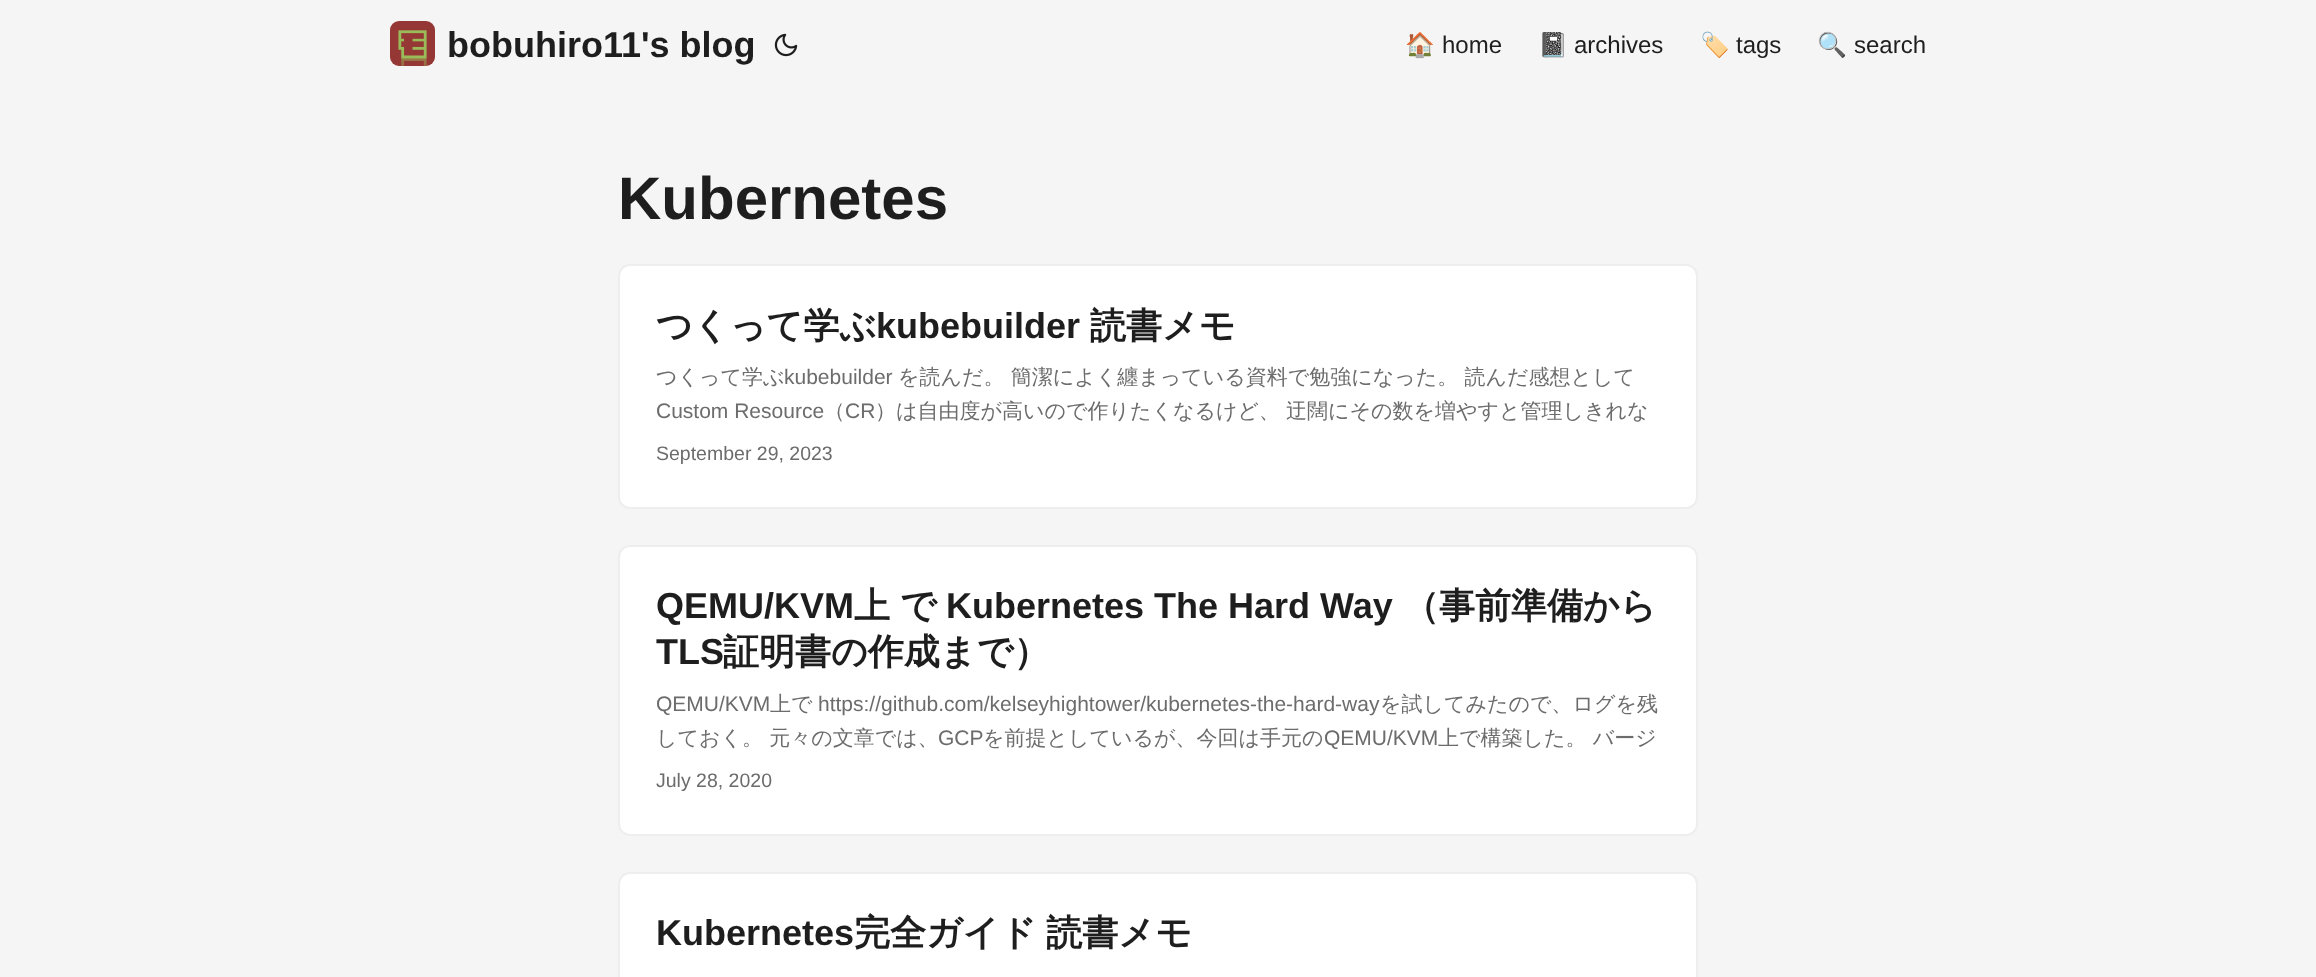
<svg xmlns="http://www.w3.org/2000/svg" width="2316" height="977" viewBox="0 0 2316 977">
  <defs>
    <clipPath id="clip1"><rect x="1406" y="0" width="520" height="90"/></clipPath>
  </defs>
  <rect width="100%" height="100%" fill="rgb(245,245,245)"/>
  <image x="390" y="21" width="45" height="45" href="pic1.png"/>
  <text x="447" y="57" font-family="Liberation Sans" font-size="36" font-weight="bold" fill="rgb(30,30,30)">bobuhiro11's blog</text>
  <image x="774" y="33" width="24" height="24" href="pic2.png"/>
  <g clip-path="url(#clip1)">
    <text x="1405" y="53" font-family="Noto Color Emoji" font-size="24" fill="rgb(30,30,30)">🏠</text>
  </g>
  <text x="1442" y="53" font-family="Liberation Sans" font-size="24" fill="rgb(30,30,30)">home</text>
  <text x="1538" y="53" font-family="Noto Color Emoji" font-size="24" fill="rgb(30,30,30)">📓</text>
  <text x="1574" y="53" font-family="Liberation Sans" font-size="24" fill="rgb(30,30,30)">archives</text>
  <text x="1700" y="53" font-family="Noto Color Emoji" font-size="24" fill="rgb(30,30,30)">🏷️</text>
  <text x="1736" y="53" font-family="Liberation Sans" font-size="24" fill="rgb(30,30,30)">tags</text>
  <text x="1817" y="53" font-family="Noto Color Emoji" font-size="24" fill="rgb(30,30,30)">🔍</text>
  <text x="1854" y="53" font-family="Liberation Sans" font-size="24" fill="rgb(30,30,30)">search</text>
  <text x="618" y="219" font-family="Liberation Sans" font-size="60" font-weight="bold" fill="rgb(30,30,30)">Kubernetes</text>
  <rect x="619" y="265" width="1078" height="243" rx="11" fill="rgb(255,255,255)" stroke="rgb(238,238,238)" stroke-width="2"/>
  <text x="656" y="338" font-family="WenQuanYi Zen Hei" font-size="36" font-weight="bold" fill="rgb(30,30,30)">つくって学ぶ</text>
  <text x="876" y="338" font-family="Liberation Sans" font-size="36" font-weight="bold" fill="rgb(30,30,30)">kubebuilder</text>
  <text x="1090" y="338" font-family="WenQuanYi Zen Hei" font-size="36" font-weight="bold" fill="rgb(30,30,30)">読書メモ</text>
  <text x="656" y="384" font-family="WenQuanYi Zen Hei" font-size="21" font-weight="500" fill="rgb(108,108,108)">つくって学ぶ</text>
  <text x="784" y="384" font-family="Liberation Sans" font-size="21" fill="rgb(108,108,108)">kubebuilder</text>
  <text x="898" y="384" font-family="WenQuanYi Zen Hei" font-size="21" font-weight="500" fill="rgb(108,108,108)">を読んだ。 簡潔によく纏まっている資料で勉強になった。 読んだ感想として</text>
  <text x="656" y="418" font-family="Liberation Sans" font-size="21" fill="rgb(108,108,108)">Custom Resource</text>
  <text x="824" y="418" font-family="WenQuanYi Zen Hei" font-size="21" font-weight="500" fill="rgb(108,108,108)">（</text>
  <text x="845" y="418" font-family="Liberation Sans" font-size="21" fill="rgb(108,108,108)">CR</text>
  <g font-family="WenQuanYi Zen Hei" font-size="21" font-weight="500" fill="rgb(108,108,108)">
    <text x="875" y="418">）は自由度が高いので作りたくなるけど、</text>
    <text x="1286" y="418">迂闊にその数を増やすと管理しきれな</text>
  </g>
  <text x="656" y="460" font-family="Liberation Sans" font-size="19.5" fill="rgb(108,108,108)">September 29, 2023</text>
  <rect x="619" y="546" width="1078" height="289" rx="11" fill="rgb(255,255,255)" stroke="rgb(238,238,238)" stroke-width="2"/>
  <text x="656" y="618" font-family="Liberation Sans" font-size="36" font-weight="bold" fill="rgb(30,30,30)">QEMU/KVM</text>
  <g font-family="WenQuanYi Zen Hei" font-size="36" font-weight="bold" fill="rgb(30,30,30)">
    <text x="854" y="618">上</text>
    <text x="900" y="618">で</text>
  </g>
  <text x="946" y="618" font-family="Liberation Sans" font-size="36" font-weight="bold" fill="rgb(30,30,30)">Kubernetes The Hard Way</text>
  <text x="1403" y="618" font-family="WenQuanYi Zen Hei" font-size="36" font-weight="bold" fill="rgb(30,30,30)">（事前準備から</text>
  <text x="656" y="664" font-family="Liberation Sans" font-size="36" font-weight="bold" fill="rgb(30,30,30)">TLS</text>
  <text x="723" y="664" font-family="WenQuanYi Zen Hei" font-size="36" font-weight="bold" fill="rgb(30,30,30)">証明書の作成まで）</text>
  <text x="656" y="711" font-family="Liberation Sans" font-size="21" fill="rgb(108,108,108)">QEMU/KVM</text>
  <text x="770" y="711" font-family="WenQuanYi Zen Hei" font-size="21" font-weight="500" fill="rgb(108,108,108)">上で</text>
  <text x="818" y="711" font-family="Liberation Sans" font-size="21" fill="rgb(108,108,108)">https://github.com/kelseyhightower/kubernetes-the-hard-way</text>
  <g font-family="WenQuanYi Zen Hei" font-size="21" font-weight="500" fill="rgb(108,108,108)">
    <text x="1380" y="711">を試してみたので、ログを残</text>
    <text x="656" y="745">しておく。 元々の文章では、</text>
  </g>
  <text x="938" y="745" font-family="Liberation Sans" font-size="21" fill="rgb(108,108,108)">GCP</text>
  <text x="983" y="745" font-family="WenQuanYi Zen Hei" font-size="21" font-weight="500" fill="rgb(108,108,108)">を前提としているが、今回は手元の</text>
  <text x="1324" y="745" font-family="Liberation Sans" font-size="21" fill="rgb(108,108,108)">QEMU/KVM</text>
  <text x="1438" y="745" font-family="WenQuanYi Zen Hei" font-size="21" font-weight="500" fill="rgb(108,108,108)">上で構築した。 バージ</text>
  <text x="656" y="787" font-family="Liberation Sans" font-size="19.5" fill="rgb(108,108,108)">July 28, 2020</text>
  <rect x="619" y="873" width="1078" height="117" rx="11" fill="rgb(255,255,255)" stroke="rgb(238,238,238)" stroke-width="2"/>
  <text x="656" y="945" font-family="Liberation Sans" font-size="36" font-weight="bold" fill="rgb(30,30,30)">Kubernetes</text>
  <text x="854" y="945" word-spacing="-1" font-family="WenQuanYi Zen Hei" font-size="36" font-weight="bold" fill="rgb(30,30,30)">完全ガイド 読書メモ</text>
</svg>
